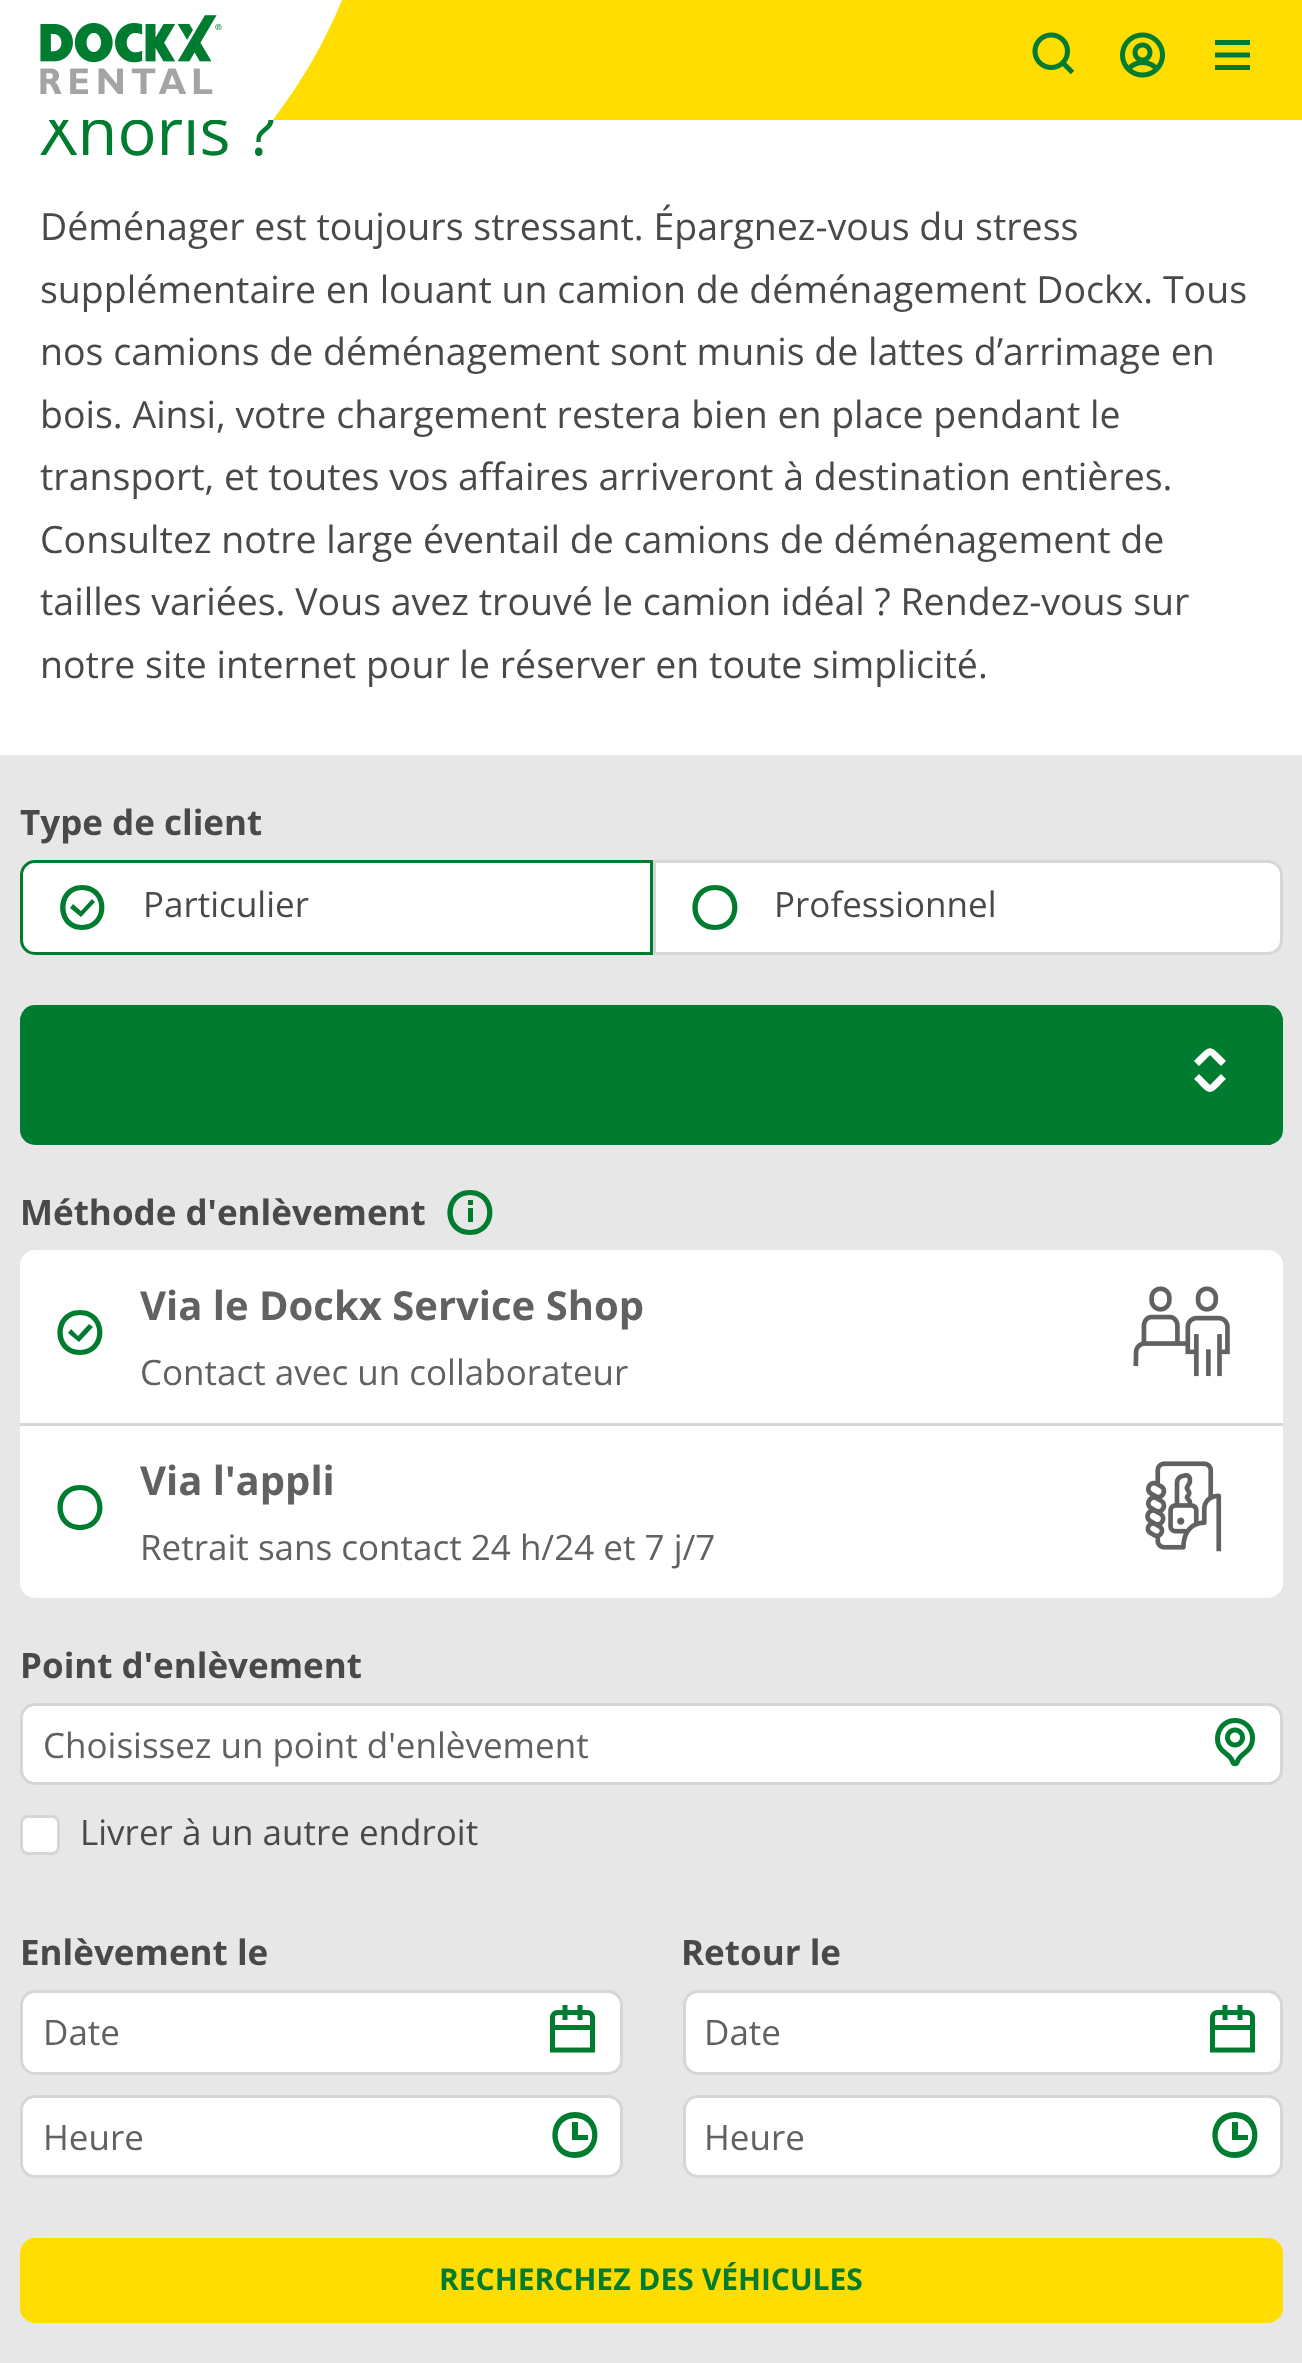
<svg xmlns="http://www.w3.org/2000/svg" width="1302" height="2363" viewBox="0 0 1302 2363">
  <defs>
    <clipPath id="clip1"><rect x="40" y="0" width="303" height="120"/></clipPath>
  </defs>
  <rect width="100%" height="100%" fill="rgb(255,255,255)"/>
  <text x="40" y="155" font-family="Open Sans" font-size="65" fill="rgb(0,124,48)">Xhoris ?</text>
  <rect x="272" y="0" width="1030" height="120" fill="rgb(255,221,0)"/>
  <g clip-path="url(#clip1)">
    <path d="M272 121C301 83 324 44 342 0H-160V121Z" fill="rgb(255,255,255)" fill-rule="evenodd"/>
  </g>
  <image x="40" y="15" width="182" height="79" href="pic1.png"/>
  <image x="1032" y="32" width="43" height="43" href="pic2.png"/>
  <image x="1120" y="32" width="45" height="46" href="pic3.png"/>
  <path d="M1215 70V65H1250V70ZM1215 57.5V52.5H1250V57.5ZM1215 45V40H1250V45Z" fill="rgb(0,124,48)" fill-rule="evenodd"/>
  <g font-family="Open Sans" font-size="37.5" fill="rgb(73,73,73)">
    <text>
      <tspan x="40" y="240">Déménager est toujours stressant. Épargnez-vous du stress</tspan>
      <tspan x="40" y="303">supplémentaire en louant un camion de déménagement Dockx. Tous</tspan>
      <tspan x="40" y="365">nos camions de déménagement sont munis de lattes d’arrimage en</tspan>
      <tspan x="40" y="428">bois. Ainsi, votre chargement restera bien en place pendant le</tspan>
      <tspan x="40" y="490">transport, et toutes vos affaires arriveront à destination entières.</tspan>
      <tspan x="40" y="553">Consultez notre large éventail de camions de déménagement de</tspan>
      <tspan x="40" y="615">tailles variées. Vous avez trouvé le camion idéal ? Rendez-vous sur</tspan>
      <tspan x="40" y="678">notre site internet pour le réserver en toute simplicité.</tspan>
    </text>
  </g>
  <rect x="0" y="755" width="1302" height="1608" fill="rgb(231,231,231)"/>
  <text x="20" y="835" font-family="Open Sans" font-size="35" font-weight="bold" fill="rgb(73,73,73)">Type de client</text>
  <path d="M35 861.5H651.5V953.5H35C27.5 953.5 21.5 947.5 21.5 940V875C21.5 867.5 27.5 861.5 35 861.5Z" fill="rgb(255,255,255)" stroke="rgb(0,124,48)" stroke-width="3"/>
  <path d="M82 925C105 925 105 890 82 890C60 890 60 925 82 925ZM82 885C112 885 112 930 82 930C53 930 53 885 82 885ZM81 911L92 899L95 902L81 917L70 908L73 904Z" fill="rgb(0,124,48)" fill-rule="evenodd"/>
  <text x="143" y="917" font-family="Open Sans" font-size="35" fill="rgb(73,73,73)">Particulier</text>
  <path d="M654.5 861.5H1268C1275.5 861.5 1281.5 867.5 1281.5 875V940C1281.5 947.5 1275.5 953.5 1268 953.5H654.5Z" fill="rgb(255,255,255)" stroke="rgb(214,214,214)" stroke-width="3"/>
  <path d="M715 925C692 925 692 890 715 890C738 890 738 925 715 925M715 885C685 885 685 930 715 930C745 930 745 885 715 885" fill="rgb(0,124,48)" fill-rule="evenodd"/>
  <text x="774" y="917" font-family="Open Sans" font-size="35" fill="rgb(73,73,73)">Professionnel</text>
  <rect x="20" y="1005" width="1263" height="140" rx="15" fill="rgb(0,124,48)"/>
  <path d="M1210 1055L1199 1066L1194 1061C1211 1044 1209 1044 1226 1061L1221 1066ZM1210 1092C1205 1092 1198 1082 1194 1079L1199 1074L1210 1085L1221 1074L1226 1079C1222 1082 1215 1092 1210 1092Z" fill="rgb(255,255,255)" fill-rule="evenodd"/>
  <text x="20" y="1225" font-family="Open Sans" font-size="35" font-weight="bold" fill="rgb(73,73,73)">Méthode d'enlèvement</text>
  <path d="M470 1230C493 1230 493 1195 470 1195C447 1195 447 1230 470 1230ZM470 1190C500 1190 500 1235 470 1235C440 1235 440 1190 470 1190ZM468 1222V1208H473V1222ZM468 1205V1200H473V1205Z" fill="rgb(0,124,48)" fill-rule="evenodd"/>
  <rect x="20" y="1250" width="1263" height="348" rx="15" fill="rgb(255,255,255)"/>
  <path d="M80 1350C103 1350 103 1315 80 1315C57 1315 57 1350 80 1350ZM80 1310C110 1310 110 1355 80 1355C50 1355 50 1310 80 1310ZM78 1336L89 1324L93 1327L79 1342L68 1333L71 1329Z" fill="rgb(0,124,48)" fill-rule="evenodd"/>
  <text x="140" y="1320" font-family="Open Sans" font-size="40" font-weight="bold" fill="rgb(97,97,97)">Via le Dockx Service Shop</text>
  <text x="140" y="1385" font-family="Open Sans" font-size="35" fill="rgb(97,97,97)">Contact avec un collaborateur</text>
  <image x="1133" y="1286" width="97" height="91" href="pic4.png"/>
  <rect x="20" y="1423" width="1263" height="3" fill="rgb(214,214,214)"/>
  <path d="M80 1525C57 1525 57 1490 80 1490C103 1490 103 1525 80 1525M80 1485C50 1485 50 1530 80 1530C110 1530 110 1485 80 1485" fill="rgb(0,124,48)" fill-rule="evenodd"/>
  <text x="140" y="1495" font-family="Open Sans" font-size="40" font-weight="bold" fill="rgb(97,97,97)">Via l'appli</text>
  <text x="140" y="1560" font-family="Open Sans" font-size="35" fill="rgb(97,97,97)">Retrait sans contact 24 h/24 et 7 j/7</text>
  <image x="1145" y="1461" width="77" height="91" href="pic5.png"/>
  <text x="20" y="1678" font-family="Open Sans" font-size="35" font-weight="bold" fill="rgb(73,73,73)">Point d'enlèvement</text>
  <rect x="21.5" y="1704.5" width="1260" height="79" rx="13.5" fill="rgb(255,255,255)" stroke="rgb(214,214,214)" stroke-width="3"/>
  <text x="43" y="1758" font-family="Open Sans" font-size="35" fill="rgb(97,97,97)">Choisissez un point d'enlèvement</text>
  <image x="1215" y="1718" width="40" height="49" href="pic6.png"/>
  <rect x="21.5" y="1816.5" width="37" height="37" rx="6.5" fill="rgb(255,255,255)" stroke="rgb(214,214,214)" stroke-width="3"/>
  <text x="80" y="1845" font-family="Open Sans" font-size="35" fill="rgb(73,73,73)">Livrer à un autre endroit</text>
  <text x="20" y="1965" font-family="Open Sans" font-size="35" font-weight="bold" fill="rgb(73,73,73)">Enlèvement le</text>
  <rect x="21.5" y="1991.5" width="600" height="82" rx="13.5" fill="rgb(255,255,255)" stroke="rgb(214,214,214)" stroke-width="3"/>
  <text x="43" y="2045" font-family="Open Sans" font-size="35" fill="rgb(97,97,97)">Date</text>
  <image x="550" y="2005" width="45" height="48" href="pic7.png"/>
  <rect x="21.5" y="2096.5" width="600" height="80" rx="13.5" fill="rgb(255,255,255)" stroke="rgb(214,214,214)" stroke-width="3"/>
  <text x="43" y="2150" font-family="Open Sans" font-size="35" fill="rgb(97,97,97)">Heure</text>
  <path d="M575 2112C605 2112 605 2158 575 2158C545 2158 545 2112 575 2112ZM575 2118C552 2118 552 2153 575 2152C598 2152 598 2118 575 2118ZM578 2122V2135H588V2140H572V2122Z" fill="rgb(0,124,48)" fill-rule="evenodd"/>
  <text x="681" y="1965" font-family="Open Sans" font-size="35" font-weight="bold" fill="rgb(73,73,73)">Retour le</text>
  <rect x="684.5" y="1991.5" width="597" height="82" rx="13.5" fill="rgb(255,255,255)" stroke="rgb(214,214,214)" stroke-width="3"/>
  <text x="704" y="2045" font-family="Open Sans" font-size="35" fill="rgb(97,97,97)">Date</text>
  <image x="1210" y="2005" width="45" height="48" href="pic7.png"/>
  <rect x="684.5" y="2096.5" width="597" height="80" rx="13.5" fill="rgb(255,255,255)" stroke="rgb(214,214,214)" stroke-width="3"/>
  <text x="704" y="2150" font-family="Open Sans" font-size="35" fill="rgb(97,97,97)">Heure</text>
  <path d="M1235 2112C1265 2112 1265 2158 1235 2158C1205 2158 1205 2112 1235 2112ZM1235 2118C1212 2118 1212 2153 1235 2152C1258 2152 1258 2118 1235 2118ZM1238 2122V2135H1248V2140H1232V2122Z" fill="rgb(0,124,48)" fill-rule="evenodd"/>
  <rect x="20" y="2238" width="1263" height="85" rx="15" fill="rgb(255,221,0)"/>
  <text x="439" y="2290" font-family="Open Sans" font-size="30" font-weight="bold" fill="rgb(0,124,48)">RECHERCHEZ DES VÉHICULES</text>
</svg>
